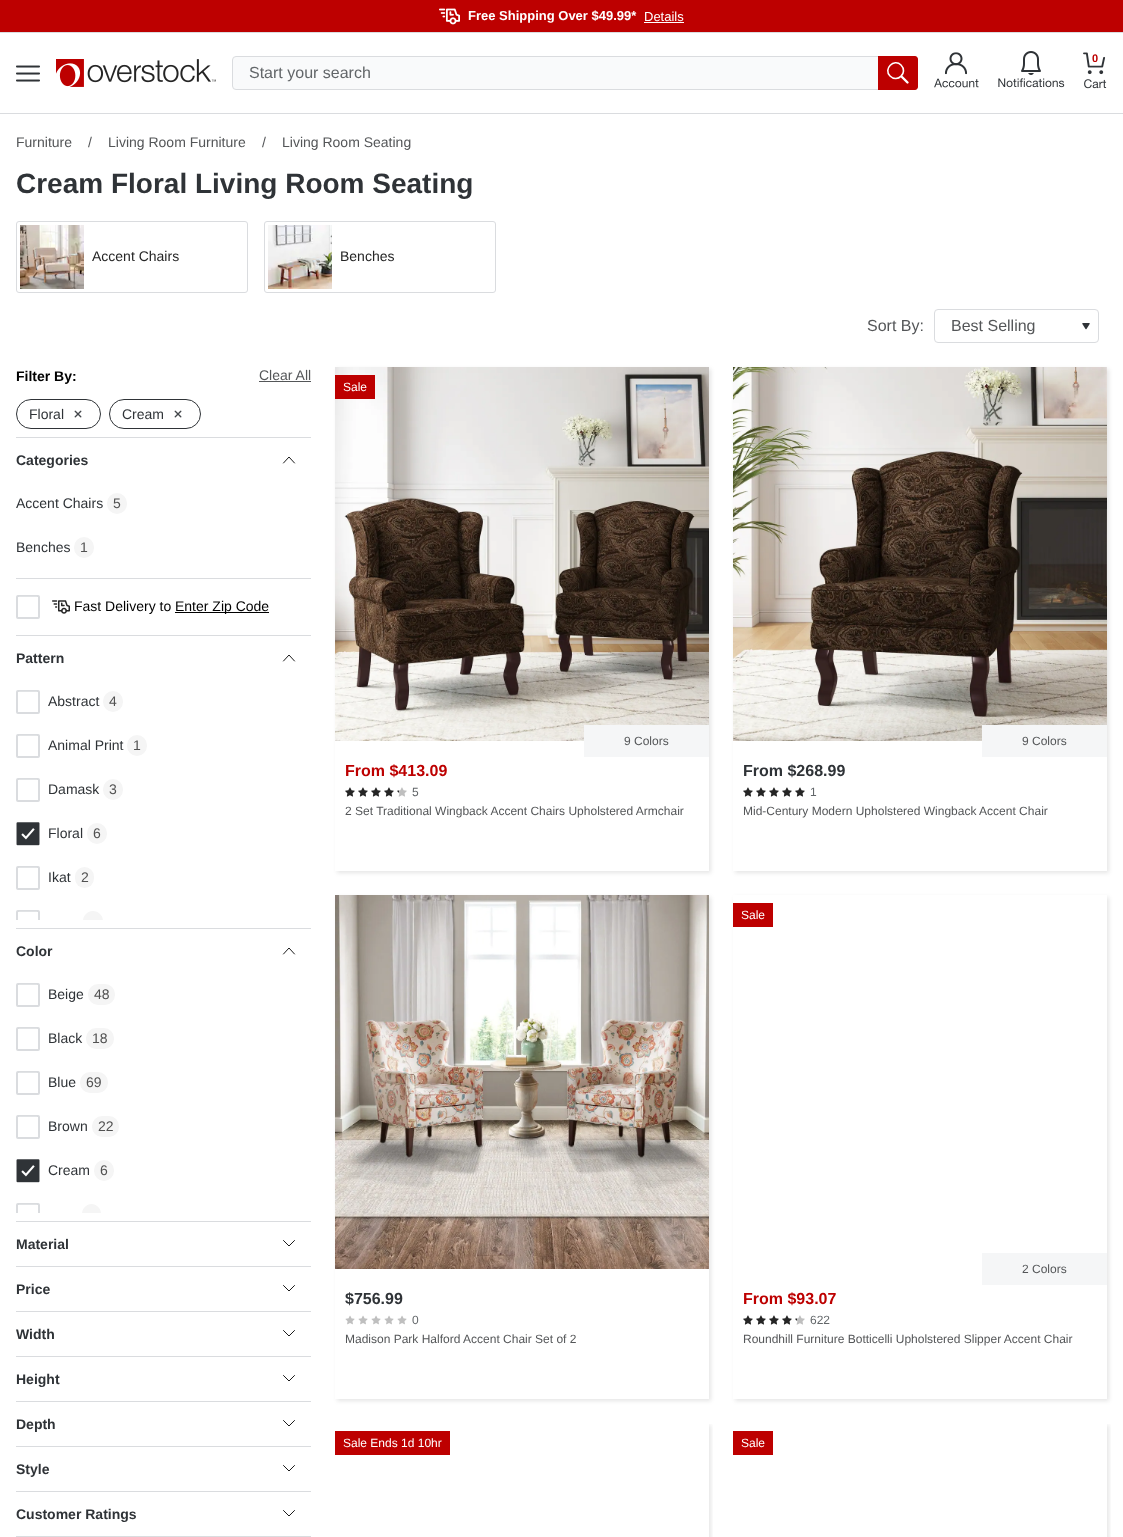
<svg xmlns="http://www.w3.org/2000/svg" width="1123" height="1537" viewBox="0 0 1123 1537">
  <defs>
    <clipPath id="clip1"><rect x="16" y="680" width="295" height="240"/></clipPath>
    <clipPath id="clip2"><rect x="16" y="973" width="295" height="240"/></clipPath>
    <clipPath id="clip3"><path d="M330 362H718V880H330ZM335 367H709V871H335Z" clip-rule="evenodd"/></clipPath>
    <clipPath id="clip4"><path d="M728 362H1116V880H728ZM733 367H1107V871H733Z" clip-rule="evenodd"/></clipPath>
    <clipPath id="clip5"><path d="M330 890H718V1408H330ZM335 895H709V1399H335Z" clip-rule="evenodd"/></clipPath>
    <clipPath id="clip6"><path d="M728 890H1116V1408H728ZM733 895H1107V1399H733Z" clip-rule="evenodd"/></clipPath>
    <clipPath id="clip7"><rect x="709" y="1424" width="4" height="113"/></clipPath>
    <clipPath id="clip8"><rect x="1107" y="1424" width="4" height="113"/></clipPath>
  </defs>
  <rect width="100%" height="100%" fill="rgb(255,255,255)"/>
  <rect x="0" y="0" width="1123" height="32" fill="rgb(189,0,0)"/>
  <image x="439" y="8" width="21" height="17" href="pic1.png"/>
  <text x="468" y="20" font-family="Liberation Sans" font-size="13" font-weight="bold" fill="rgb(255,255,255)">Free Shipping Over $49.99*</text>
  <text x="644" y="21" font-family="Liberation Sans" font-size="13" fill="rgb(255,255,255)">Details</text>
  <rect x="644" y="22" width="40" height="1" fill="rgb(255,255,255)"/>
  <rect x="0" y="32" width="1123" height="1" fill="rgb(218,220,223)"/>
  <rect x="0" y="113" width="1123" height="1" fill="rgb(218,220,223)"/>
  <image x="16" y="65" width="24" height="17" href="pic2.png"/>
  <image x="56" y="59" width="160" height="28" href="pic3.png"/>
  <rect x="232.5" y="56.5" width="685" height="33" rx="3.5" fill="rgb(249,250,251)" stroke="rgb(218,220,223)"/>
  <text x="249" y="78" font-family="Liberation Sans" font-size="16" fill="rgb(98,102,105)">Start your search</text>
  <path d="M878 56H915C916.5 56 918 57.5 918 59V87C918 88.5 916.5 90 915 90H878Z" fill="rgb(189,0,0)"/>
  <path d="M907.5 82.5L902 77" fill="none" stroke="rgb(255,255,255)" stroke-width="2.4" stroke-linecap="round"/>
  <path d="M901 65C908.5 72.5 897.5 83.5 890 76C883 69 894 58 901 65Z" fill="none" stroke="rgb(255,255,255)" stroke-width="1.6"/>
  <image x="934" y="52" width="45" height="36" href="pic4.png"/>
  <image x="998" y="51" width="67" height="37" href="pic5.png"/>
  <image x="1083" y="52" width="24" height="37" href="pic6.png"/>
  <text x="1092" y="62" font-family="Liberation Sans" font-size="11" font-weight="bold" fill="rgb(189,0,0)">0</text>
  <g font-family="Liberation Sans" font-size="14" fill="rgb(84,86,88)">
    <text x="16" y="147">Furniture</text>
    <text x="88" y="147">/</text>
    <text x="108" y="147">Living Room Furniture</text>
    <text x="262" y="147">/</text>
    <text x="282" y="147">Living Room Seating</text>
  </g>
  <text x="16" y="193" font-family="Liberation Sans" font-size="28" font-weight="bold" fill="rgb(47,51,55)">Cream Floral Living Room Seating</text>
  <rect x="16.5" y="221.5" width="231" height="71" rx="2.5" fill="none" stroke="rgb(218,220,223)"/>
  <image x="20" y="225" width="64" height="64" href="pic7.png"/>
  <text x="92" y="261" font-family="Liberation Sans" font-size="14" fill="rgb(37,37,37)">Accent Chairs</text>
  <rect x="264.5" y="221.5" width="231" height="71" rx="2.5" fill="none" stroke="rgb(218,220,223)"/>
  <image x="268" y="225" width="64" height="64" href="pic8.png"/>
  <text x="340" y="261" font-family="Liberation Sans" font-size="14" fill="rgb(37,37,37)">Benches</text>
  <text x="867" y="331" font-family="Liberation Sans" font-size="16" fill="rgb(84,86,88)">Sort By:</text>
  <image x="1082" y="323" width="8" height="7" href="pic9.png"/>
  <rect x="934.5" y="309.5" width="164" height="33" rx="3.5" fill="none" stroke="rgb(218,220,223)"/>
  <text x="951" y="331" font-family="Liberation Sans" font-size="16" fill="rgb(84,86,88)">Best Selling</text>
  <text x="16" y="381" font-family="Liberation Sans" font-size="14" font-weight="bold" fill="rgb(0,0,0)">Filter By:</text>
  <text x="259" y="380" font-family="Liberation Sans" font-size="14" fill="rgb(84,86,88)">Clear All</text>
  <rect x="259" y="381" width="52" height="1" fill="rgb(84,86,88)"/>
  <rect x="16.5" y="399.5" width="84" height="29" rx="14.5" fill="none" stroke="rgb(47,51,55)"/>
  <text x="29" y="419" font-family="Liberation Sans" font-size="14" fill="rgb(47,51,55)">Floral</text>
  <image x="74" y="410" width="8" height="8" href="pic10.png"/>
  <rect x="109.5" y="399.5" width="91" height="29" rx="14.5" fill="none" stroke="rgb(47,51,55)"/>
  <text x="122" y="419" font-family="Liberation Sans" font-size="14" fill="rgb(47,51,55)">Cream</text>
  <image x="174" y="410" width="8" height="8" href="pic11.png"/>
  <rect x="16" y="437" width="295" height="1" fill="rgb(218,220,223)"/>
  <text x="16" y="465" font-family="Liberation Sans" font-size="14" font-weight="bold" fill="rgb(47,51,55)">Categories</text>
  <path d="M283.5 463L289 457L294.5 463" fill="none" stroke="rgb(0,0,0)" stroke-width="0.9" stroke-linecap="round"/>
  <text x="16" y="508" font-family="Liberation Sans" font-size="14" fill="rgb(47,51,55)">Accent Chairs</text>
  <rect x="107" y="493" width="20" height="21" rx="10" fill="rgb(245,245,245)"/>
  <text x="113" y="508" font-family="Liberation Sans" font-size="14" fill="rgb(81,81,81)">5</text>
  <text x="16" y="552" font-family="Liberation Sans" font-size="14" fill="rgb(47,51,55)">Benches</text>
  <rect x="74" y="537" width="20" height="21" rx="10" fill="rgb(245,245,245)"/>
  <text x="80" y="552" font-family="Liberation Sans" font-size="14" fill="rgb(81,81,81)">1</text>
  <rect x="16" y="578" width="295" height="1" fill="rgb(218,220,223)"/>
  <rect x="17" y="596" width="22" height="22" rx="1" fill="none" stroke="rgb(218,220,223)" stroke-width="2"/>
  <rect x="19" y="596" width="18" height="1" fill="rgb(225,227,229)"/>
  <image x="52" y="600" width="18" height="14" href="pic12.png"/>
  <text x="74" y="611" font-family="Liberation Sans" font-size="14" fill="rgb(0,0,0)">Fast Delivery to</text>
  <rect x="175" y="612" width="94" height="1" fill="rgb(0,0,0)"/>
  <text x="175" y="611" font-family="Liberation Sans" font-size="14" fill="rgb(0,0,0)">Enter Zip Code</text>
  <rect x="16" y="635" width="295" height="1" fill="rgb(218,220,223)"/>
  <text x="16" y="663" font-family="Liberation Sans" font-size="14" font-weight="bold" fill="rgb(47,51,55)">Pattern</text>
  <path d="M283.5 661L289 655L294.5 661" fill="none" stroke="rgb(0,0,0)" stroke-width="0.9" stroke-linecap="round"/>
  <rect x="17" y="691" width="22" height="22" rx="1" fill="none" stroke="rgb(218,220,223)" stroke-width="2"/>
  <rect x="19" y="691" width="18" height="1" fill="rgb(225,227,229)"/>
  <text x="48" y="706" font-family="Liberation Sans" font-size="14" fill="rgb(47,51,55)">Abstract</text>
  <rect x="103" y="691" width="20" height="21" rx="10" fill="rgb(245,245,245)"/>
  <text x="109" y="706" font-family="Liberation Sans" font-size="14" fill="rgb(81,81,81)">4</text>
  <rect x="17" y="735" width="22" height="22" rx="1" fill="none" stroke="rgb(218,220,223)" stroke-width="2"/>
  <rect x="19" y="735" width="18" height="1" fill="rgb(225,227,229)"/>
  <text x="48" y="750" font-family="Liberation Sans" font-size="14" fill="rgb(47,51,55)">Animal Print</text>
  <rect x="127" y="735" width="20" height="21" rx="10" fill="rgb(245,245,245)"/>
  <text x="133" y="750" font-family="Liberation Sans" font-size="14" fill="rgb(81,81,81)">1</text>
  <rect x="17" y="779" width="22" height="22" rx="1" fill="none" stroke="rgb(218,220,223)" stroke-width="2"/>
  <rect x="19" y="779" width="18" height="1" fill="rgb(225,227,229)"/>
  <text x="48" y="794" font-family="Liberation Sans" font-size="14" fill="rgb(47,51,55)">Damask</text>
  <rect x="103" y="779" width="20" height="21" rx="10" fill="rgb(245,245,245)"/>
  <text x="109" y="794" font-family="Liberation Sans" font-size="14" fill="rgb(81,81,81)">3</text>
  <image x="16" y="822" width="24" height="24" href="pic13.png"/>
  <text x="48" y="838" font-family="Liberation Sans" font-size="14" fill="rgb(47,51,55)">Floral</text>
  <rect x="87" y="823" width="20" height="21" rx="10" fill="rgb(245,245,245)"/>
  <text x="93" y="838" font-family="Liberation Sans" font-size="14" fill="rgb(81,81,81)">6</text>
  <rect x="17" y="867" width="22" height="22" rx="1" fill="none" stroke="rgb(218,220,223)" stroke-width="2"/>
  <rect x="19" y="867" width="18" height="1" fill="rgb(225,227,229)"/>
  <text x="48" y="882" font-family="Liberation Sans" font-size="14" fill="rgb(47,51,55)">Ikat</text>
  <rect x="75" y="867" width="19" height="21" rx="9.5" fill="rgb(245,245,245)"/>
  <text x="81" y="882" font-family="Liberation Sans" font-size="14" fill="rgb(81,81,81)">2</text>
  <rect x="16" y="928" width="295" height="1" fill="rgb(218,220,223)"/>
  <g clip-path="url(#clip1)">
    <rect x="17" y="911" width="22" height="22" rx="1" fill="none" stroke="rgb(218,220,223)" stroke-width="2"/>
  </g>
  <rect x="19" y="911" width="18" height="1" fill="rgb(225,227,229)"/>
  <path d="M93 911C98.5 911 103 915.5 103 921V920H83V921C83 915.5 87.5 911 93 911Z" fill="rgb(245,245,245)"/>
  <text x="16" y="956" font-family="Liberation Sans" font-size="14" font-weight="bold" fill="rgb(47,51,55)">Color</text>
  <path d="M283.5 954L289 948L294.5 954" fill="none" stroke="rgb(0,0,0)" stroke-width="0.9" stroke-linecap="round"/>
  <rect x="17" y="984" width="22" height="22" rx="1" fill="none" stroke="rgb(218,220,223)" stroke-width="2"/>
  <rect x="19" y="984" width="18" height="1" fill="rgb(225,227,229)"/>
  <text x="48" y="999" font-family="Liberation Sans" font-size="14" fill="rgb(47,51,55)">Beige</text>
  <rect x="88" y="984" width="27" height="21" rx="10" fill="rgb(245,245,245)"/>
  <text x="94" y="999" font-family="Liberation Sans" font-size="14" fill="rgb(81,81,81)">48</text>
  <rect x="17" y="1028" width="22" height="22" rx="1" fill="none" stroke="rgb(218,220,223)" stroke-width="2"/>
  <rect x="19" y="1028" width="18" height="1" fill="rgb(225,227,229)"/>
  <text x="48" y="1043" font-family="Liberation Sans" font-size="14" fill="rgb(47,51,55)">Black</text>
  <rect x="86" y="1028" width="28" height="21" rx="10" fill="rgb(245,245,245)"/>
  <text x="92" y="1043" font-family="Liberation Sans" font-size="14" fill="rgb(81,81,81)">18</text>
  <rect x="17" y="1072" width="22" height="22" rx="1" fill="none" stroke="rgb(218,220,223)" stroke-width="2"/>
  <rect x="19" y="1072" width="18" height="1" fill="rgb(225,227,229)"/>
  <text x="48" y="1087" font-family="Liberation Sans" font-size="14" fill="rgb(47,51,55)">Blue</text>
  <rect x="80" y="1072" width="28" height="21" rx="10" fill="rgb(245,245,245)"/>
  <text x="86" y="1087" font-family="Liberation Sans" font-size="14" fill="rgb(81,81,81)">69</text>
  <rect x="17" y="1116" width="22" height="22" rx="1" fill="none" stroke="rgb(218,220,223)" stroke-width="2"/>
  <rect x="19" y="1116" width="18" height="1" fill="rgb(225,227,229)"/>
  <text x="48" y="1131" font-family="Liberation Sans" font-size="14" fill="rgb(47,51,55)">Brown</text>
  <rect x="92" y="1116" width="27" height="21" rx="10" fill="rgb(245,245,245)"/>
  <text x="98" y="1131" font-family="Liberation Sans" font-size="14" fill="rgb(81,81,81)">22</text>
  <image x="16" y="1159" width="24" height="24" href="pic13.png"/>
  <text x="48" y="1175" font-family="Liberation Sans" font-size="14" fill="rgb(47,51,55)">Cream</text>
  <rect x="94" y="1160" width="20" height="21" rx="10" fill="rgb(245,245,245)"/>
  <text x="100" y="1175" font-family="Liberation Sans" font-size="14" fill="rgb(81,81,81)">6</text>
  <rect x="16" y="1221" width="295" height="1" fill="rgb(218,220,223)"/>
  <g clip-path="url(#clip2)">
    <rect x="17" y="1204" width="22" height="22" rx="1" fill="none" stroke="rgb(218,220,223)" stroke-width="2"/>
  </g>
  <rect x="19" y="1204" width="18" height="1" fill="rgb(225,227,229)"/>
  <path d="M91.5 1204C96.5 1204 101 1208.5 101 1213.5V1213H82V1213.5C82 1208.5 86.5 1204 91.5 1204Z" fill="rgb(245,245,245)"/>
  <text x="16" y="1249" font-family="Liberation Sans" font-size="14" font-weight="bold" fill="rgb(47,51,55)">Material</text>
  <rect x="16" y="1266" width="295" height="1" fill="rgb(218,220,223)"/>
  <path d="M294.5 1240.5L289 1246L283.5 1240.5M294.5 1285.5L289 1291L283.5 1285.5" fill="none" stroke="rgb(0,0,0)" stroke-width="0.9" stroke-linecap="round"/>
  <text x="16" y="1294" font-family="Liberation Sans" font-size="14" font-weight="bold" fill="rgb(47,51,55)">Price</text>
  <rect x="16" y="1311" width="295" height="1" fill="rgb(218,220,223)"/>
  <text x="16" y="1339" font-family="Liberation Sans" font-size="14" font-weight="bold" fill="rgb(47,51,55)">Width</text>
  <rect x="16" y="1356" width="295" height="1" fill="rgb(218,220,223)"/>
  <path d="M294.5 1330.5L289 1336L283.5 1330.5M294.5 1375.5L289 1381L283.5 1375.5" fill="none" stroke="rgb(0,0,0)" stroke-width="0.9" stroke-linecap="round"/>
  <text x="16" y="1384" font-family="Liberation Sans" font-size="14" font-weight="bold" fill="rgb(47,51,55)">Height</text>
  <rect x="16" y="1401" width="295" height="1" fill="rgb(218,220,223)"/>
  <text x="16" y="1429" font-family="Liberation Sans" font-size="14" font-weight="bold" fill="rgb(47,51,55)">Depth</text>
  <rect x="16" y="1446" width="295" height="1" fill="rgb(218,220,223)"/>
  <path d="M294.5 1420.5L289 1426L283.5 1420.5M294.5 1465.5L289 1471L283.5 1465.5" fill="none" stroke="rgb(0,0,0)" stroke-width="0.9" stroke-linecap="round"/>
  <text x="16" y="1474" font-family="Liberation Sans" font-size="14" font-weight="bold" fill="rgb(47,51,55)">Style</text>
  <rect x="16" y="1491" width="295" height="1" fill="rgb(218,220,223)"/>
  <text x="16" y="1519" font-family="Liberation Sans" font-size="14" font-weight="bold" fill="rgb(47,51,55)">Customer Ratings</text>
  <path d="M294.5 1510.5L289 1516L283.5 1510.5" fill="none" stroke="rgb(0,0,0)" stroke-width="0.9" stroke-linecap="round"/>
  <rect x="16" y="1536" width="295" height="1" fill="rgb(218,220,223)"/>
  <g clip-path="url(#clip3)">
    <rect x="337" y="369" width="374" height="504" fill="rgba(0,0,0,0.1)" filter="blur(2px)"/>
  </g>
  <image x="335" y="367" width="374" height="374" href="pic14.png"/>
  <rect x="335" y="375" width="40" height="24" fill="rgb(189,0,0)"/>
  <text x="343" y="391" font-family="Liberation Sans" font-size="12" fill="rgb(255,255,255)">Sale</text>
  <text x="345" y="776" font-family="Liberation Sans" font-size="16" font-weight="bold" fill="rgb(189,0,0)">From $413.09</text>
  <image x="345" y="787" width="10" height="10" href="pic15.png"/>
  <image x="358" y="787" width="10" height="10" href="pic15.png"/>
  <image x="371" y="787" width="10" height="10" href="pic15.png"/>
  <image x="384" y="787" width="10" height="10" href="pic15.png"/>
  <image x="397" y="787" width="10" height="10" href="pic16.png"/>
  <text x="412" y="796" font-family="Liberation Sans" font-size="12" fill="rgb(98,102,105)">5</text>
  <text x="345" y="815" font-family="Liberation Sans" font-size="12" fill="rgb(84,86,88)">2 Set Traditional Wingback Accent Chairs Upholstered Armchair</text>
  <rect x="584" y="725" width="125" height="32" fill="rgb(245,246,247)"/>
  <text x="624" y="745" font-family="Liberation Sans" font-size="12" fill="rgb(84,86,88)">9 Colors</text>
  <g clip-path="url(#clip4)">
    <rect x="735" y="369" width="374" height="504" fill="rgba(0,0,0,0.1)" filter="blur(2px)"/>
  </g>
  <image x="733" y="367" width="374" height="374" href="pic17.png"/>
  <rect x="982" y="725" width="125" height="32" fill="rgb(245,246,247)"/>
  <text x="1022" y="745" font-family="Liberation Sans" font-size="12" fill="rgb(84,86,88)">9 Colors</text>
  <text x="743" y="776" font-family="Liberation Sans" font-size="16" font-weight="bold" fill="rgb(47,51,55)">From $268.99</text>
  <image x="743" y="787" width="10" height="10" href="pic15.png"/>
  <image x="756" y="787" width="10" height="10" href="pic15.png"/>
  <image x="769" y="787" width="10" height="10" href="pic15.png"/>
  <image x="782" y="787" width="10" height="10" href="pic15.png"/>
  <image x="795" y="787" width="10" height="10" href="pic15.png"/>
  <text x="810" y="796" font-family="Liberation Sans" font-size="12" fill="rgb(98,102,105)">1</text>
  <text x="743" y="815" font-family="Liberation Sans" font-size="12" fill="rgb(84,86,88)">Mid-Century Modern Upholstered Wingback Accent Chair</text>
  <g clip-path="url(#clip5)">
    <rect x="337" y="897" width="374" height="504" fill="rgba(0,0,0,0.1)" filter="blur(2px)"/>
  </g>
  <image x="335" y="895" width="374" height="374" href="pic18.png"/>
  <text x="345" y="1304" font-family="Liberation Sans" font-size="16" font-weight="bold" fill="rgb(47,51,55)">$756.99</text>
  <image x="345" y="1315" width="10" height="10" href="pic19.png"/>
  <image x="358" y="1315" width="10" height="10" href="pic19.png"/>
  <image x="371" y="1315" width="10" height="10" href="pic19.png"/>
  <image x="384" y="1315" width="10" height="10" href="pic19.png"/>
  <image x="397" y="1315" width="10" height="10" href="pic19.png"/>
  <text x="412" y="1324" font-family="Liberation Sans" font-size="12" fill="rgb(98,102,105)">0</text>
  <text x="345" y="1343" font-family="Liberation Sans" font-size="12" fill="rgb(84,86,88)">Madison Park Halford Accent Chair Set of 2</text>
  <g clip-path="url(#clip6)">
    <rect x="735" y="897" width="374" height="504" fill="rgba(0,0,0,0.1)" filter="blur(2px)"/>
  </g>
  <rect x="733" y="903" width="40" height="24" fill="rgb(189,0,0)"/>
  <text x="741" y="919" font-family="Liberation Sans" font-size="12" fill="rgb(255,255,255)">Sale</text>
  <text x="743" y="1304" font-family="Liberation Sans" font-size="16" font-weight="bold" fill="rgb(189,0,0)">From $93.07</text>
  <image x="743" y="1315" width="10" height="10" href="pic15.png"/>
  <image x="756" y="1315" width="10" height="10" href="pic15.png"/>
  <image x="769" y="1315" width="10" height="10" href="pic15.png"/>
  <image x="782" y="1315" width="10" height="10" href="pic15.png"/>
  <image x="795" y="1315" width="10" height="10" href="pic16.png"/>
  <text x="810" y="1324" font-family="Liberation Sans" font-size="12" fill="rgb(98,102,105)">622</text>
  <text x="743" y="1343" font-family="Liberation Sans" font-size="12" fill="rgb(84,86,88)">Roundhill Furniture Botticelli Upholstered Slipper Accent Chair</text>
  <rect x="982" y="1253" width="125" height="32" fill="rgb(245,246,247)"/>
  <text x="1022" y="1273" font-family="Liberation Sans" font-size="12" fill="rgb(84,86,88)">2 Colors</text>
  <g clip-path="url(#clip7)">
    <rect x="337" y="1425" width="374" height="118" fill="rgba(0,0,0,0.1)" filter="blur(2px)"/>
  </g>
  <rect x="335" y="1431" width="115" height="24" fill="rgb(189,0,0)"/>
  <text x="343" y="1447" font-family="Liberation Sans" font-size="12" fill="rgb(255,255,255)">Sale Ends 1d 10hr</text>
  <g clip-path="url(#clip8)">
    <rect x="735" y="1425" width="374" height="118" fill="rgba(0,0,0,0.1)" filter="blur(2px)"/>
  </g>
  <rect x="733" y="1431" width="40" height="24" fill="rgb(189,0,0)"/>
  <text x="741" y="1447" font-family="Liberation Sans" font-size="12" fill="rgb(255,255,255)">Sale</text>
</svg>
